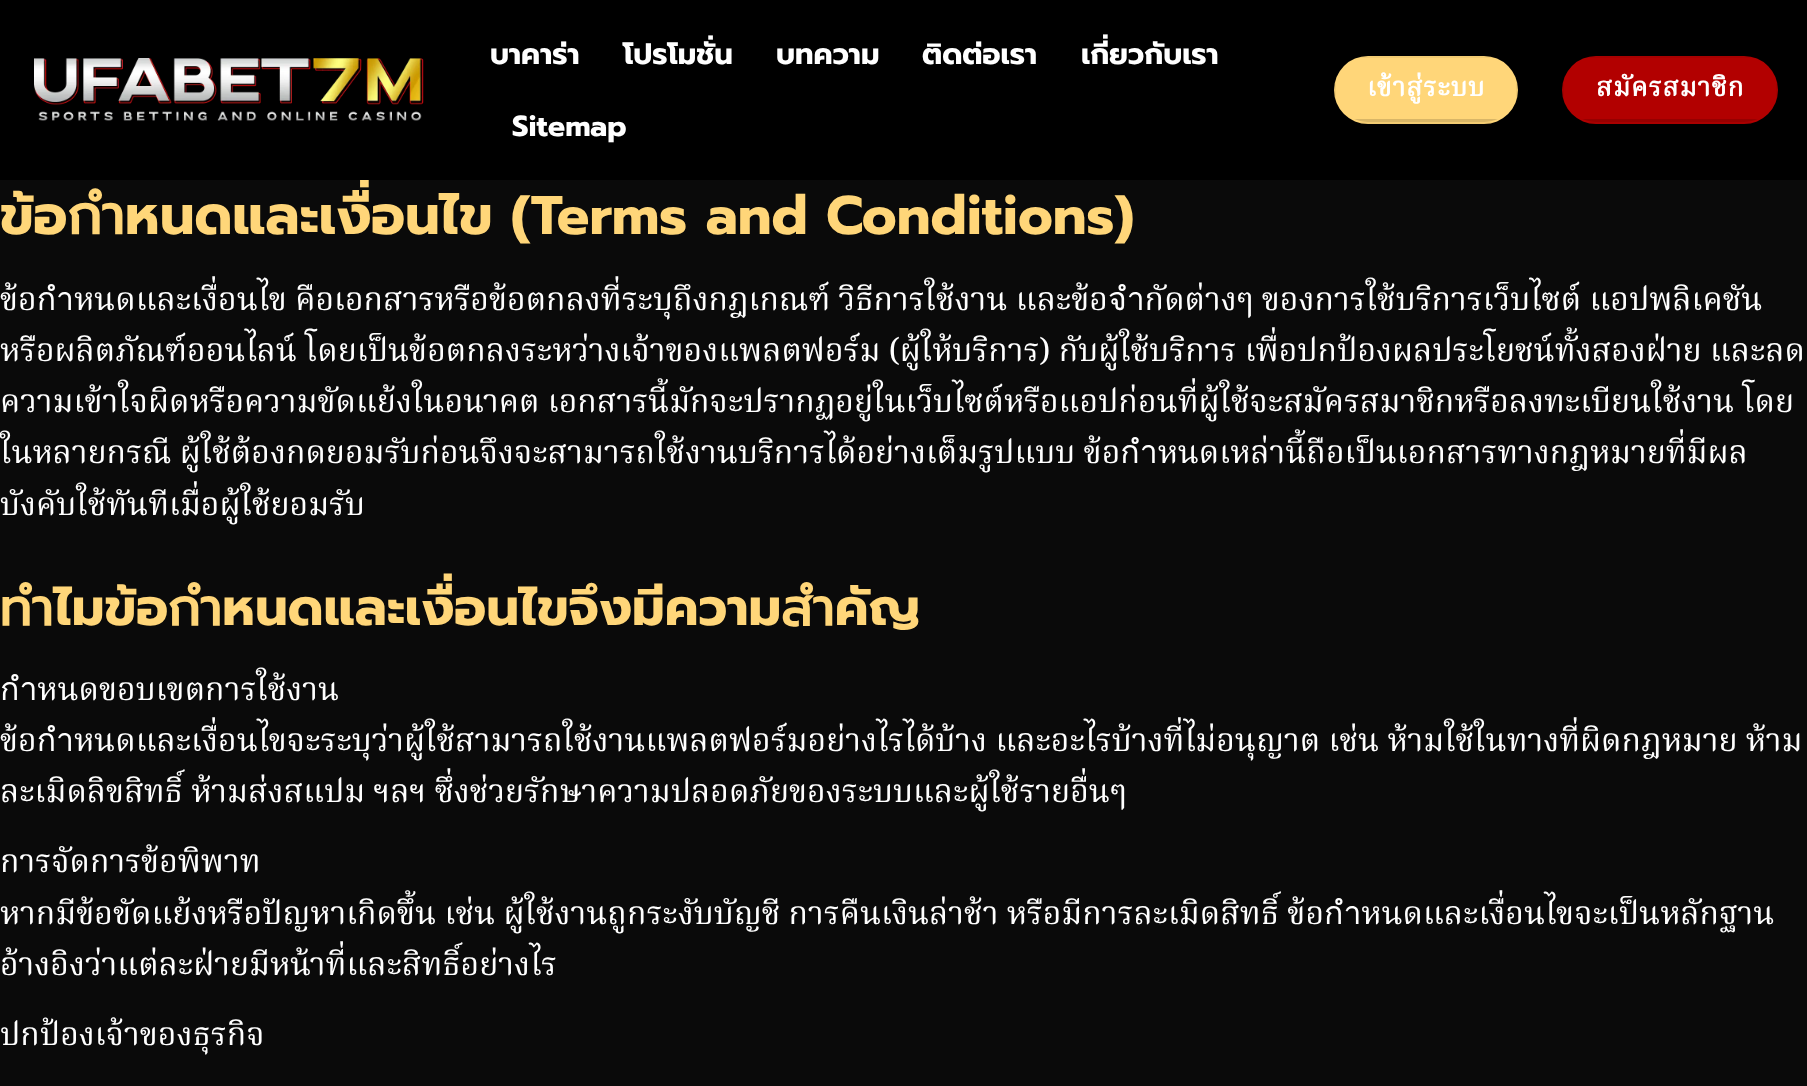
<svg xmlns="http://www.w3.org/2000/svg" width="1807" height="1086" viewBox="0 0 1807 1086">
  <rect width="100%" height="100%" fill="rgb(10,10,10)"/>
  <text x="0" y="234" font-family="Prompt" font-size="54.4" font-weight="bold" fill="rgb(255,214,121)">ข้อกำหนดและเงื่อนไข (Terms and Conditions)</text>
  <rect x="0" y="0" width="1807" height="180" fill="rgb(0,0,0)"/>
  <image x="34" y="58" width="390" height="63" href="pic1.png"/>
  <g font-family="Prompt" font-size="29" font-weight="bold" fill="rgb(255,255,255)">
    <text x="490" y="64">บาคาร่า</text>
    <text x="623" y="64">โปรโมชั่น</text>
    <text x="776" y="64">บทความ</text>
    <text x="922" y="64">ติดต่อเรา</text>
    <text x="1081" y="64">เกี่ยวกับเรา</text>
    <text x="512" y="136">Sitemap</text>
  </g>
  <rect x="1334" y="56" width="184" height="68" rx="34" fill="rgb(255,214,121)"/>
  <rect x="1335" y="57" width="182" height="66" fill="none" stroke="rgba(0,0,0,0.05)" stroke-width="2"/>
  <text x="1367" y="96" font-family="Noto Serif Thai" font-size="26.5" font-weight="bold" letter-spacing="0.75" fill="rgb(255,255,255)">เข้าสู่ระบบ</text>
  <path d="M1498 119H1354C1359 121 1363 122 1368 122H1484C1489 122 1493 121 1498 119Z" fill="rgba(0,0,0,0.15)"/>
  <rect x="1562" y="56" width="216" height="68" rx="34" fill="rgb(178,0,0)"/>
  <rect x="1563" y="57" width="214" height="66" fill="none" stroke="rgba(0,0,0,0.05)" stroke-width="2"/>
  <text x="1596" y="96" font-family="Noto Serif Thai" font-size="26.5" font-weight="bold" letter-spacing="0.75" fill="rgb(255,255,255)">สมัครสมาชิก</text>
  <path d="M1758 119H1582C1587 121 1591 122 1596 122H1744C1749 122 1753 121 1758 119Z" fill="rgba(0,0,0,0.15)"/>
  <g font-family="Noto Serif Thai" font-size="32" fill="rgb(255,255,255)">
    <text>
      <tspan x="0" y="310">ข้อกำหนดและเงื่อนไข คือเอกสารหรือข้อตกลงที่ระบุถึงกฎเกณฑ์ วิธีการใช้งาน และข้อจำกัดต่างๆ ของการใช้บริการเว็บไซต์ แอปพลิเคชัน</tspan>
      <tspan x="0" y="361">หรือผลิตภัณฑ์ออนไลน์ โดยเป็นข้อตกลงระหว่างเจ้าของแพลตฟอร์ม (ผู้ให้บริการ) กับผู้ใช้บริการ เพื่อปกป้องผลประโยชน์ทั้งสองฝ่าย และลด</tspan>
      <tspan x="0" y="412">ความเข้าใจผิดหรือความขัดแย้งในอนาคต เอกสารนี้มักจะปรากฏอยู่ในเว็บไซต์หรือแอปก่อนที่ผู้ใช้จะสมัครสมาชิกหรือลงทะเบียนใช้งาน โดย</tspan>
      <tspan x="0" y="463">ในหลายกรณี ผู้ใช้ต้องกดยอมรับก่อนจึงจะสามารถใช้งานบริการได้อย่างเต็มรูปแบบ ข้อกำหนดเหล่านี้ถือเป็นเอกสารทางกฎหมายที่มีผล</tspan>
      <tspan x="0" y="515">บังคับใช้ทันทีเมื่อผู้ใช้ยอมรับ</tspan>
    </text>
  </g>
  <text x="0" y="625" font-family="Prompt" font-size="51.25" font-weight="bold" fill="rgb(255,214,121)">ทำไมข้อกำหนดและเงื่อนไขจึงมีความสำคัญ</text>
  <g font-family="Noto Serif Thai" font-size="32" fill="rgb(255,255,255)">
    <text>
      <tspan x="0" y="700">กำหนดขอบเขตการใช้งาน</tspan>
      <tspan x="0" y="751">ข้อกำหนดและเงื่อนไขจะระบุว่าผู้ใช้สามารถใช้งานแพลตฟอร์มอย่างไรได้บ้าง และอะไรบ้างที่ไม่อนุญาต เช่น ห้ามใช้ในทางที่ผิดกฎหมาย ห้าม</tspan>
      <tspan x="0" y="802">ละเมิดลิขสิทธิ์ ห้ามส่งสแปม ฯลฯ ซึ่งช่วยรักษาความปลอดภัยของระบบและผู้ใช้รายอื่นๆ</tspan>
    </text>
    <text>
      <tspan x="0" y="872">การจัดการข้อพิพาท</tspan>
      <tspan x="0" y="924">หากมีข้อขัดแย้งหรือปัญหาเกิดขึ้น เช่น ผู้ใช้งานถูกระงับบัญชี การคืนเงินล่าช้า หรือมีการละเมิดสิทธิ์ ข้อกำหนดและเงื่อนไขจะเป็นหลักฐาน</tspan>
      <tspan x="0" y="975">อ้างอิงว่าแต่ละฝ่ายมีหน้าที่และสิทธิ์อย่างไร</tspan>
    </text>
    <text x="0" y="1045">ปกป้องเจ้าของธุรกิจ</text>
  </g>
</svg>
